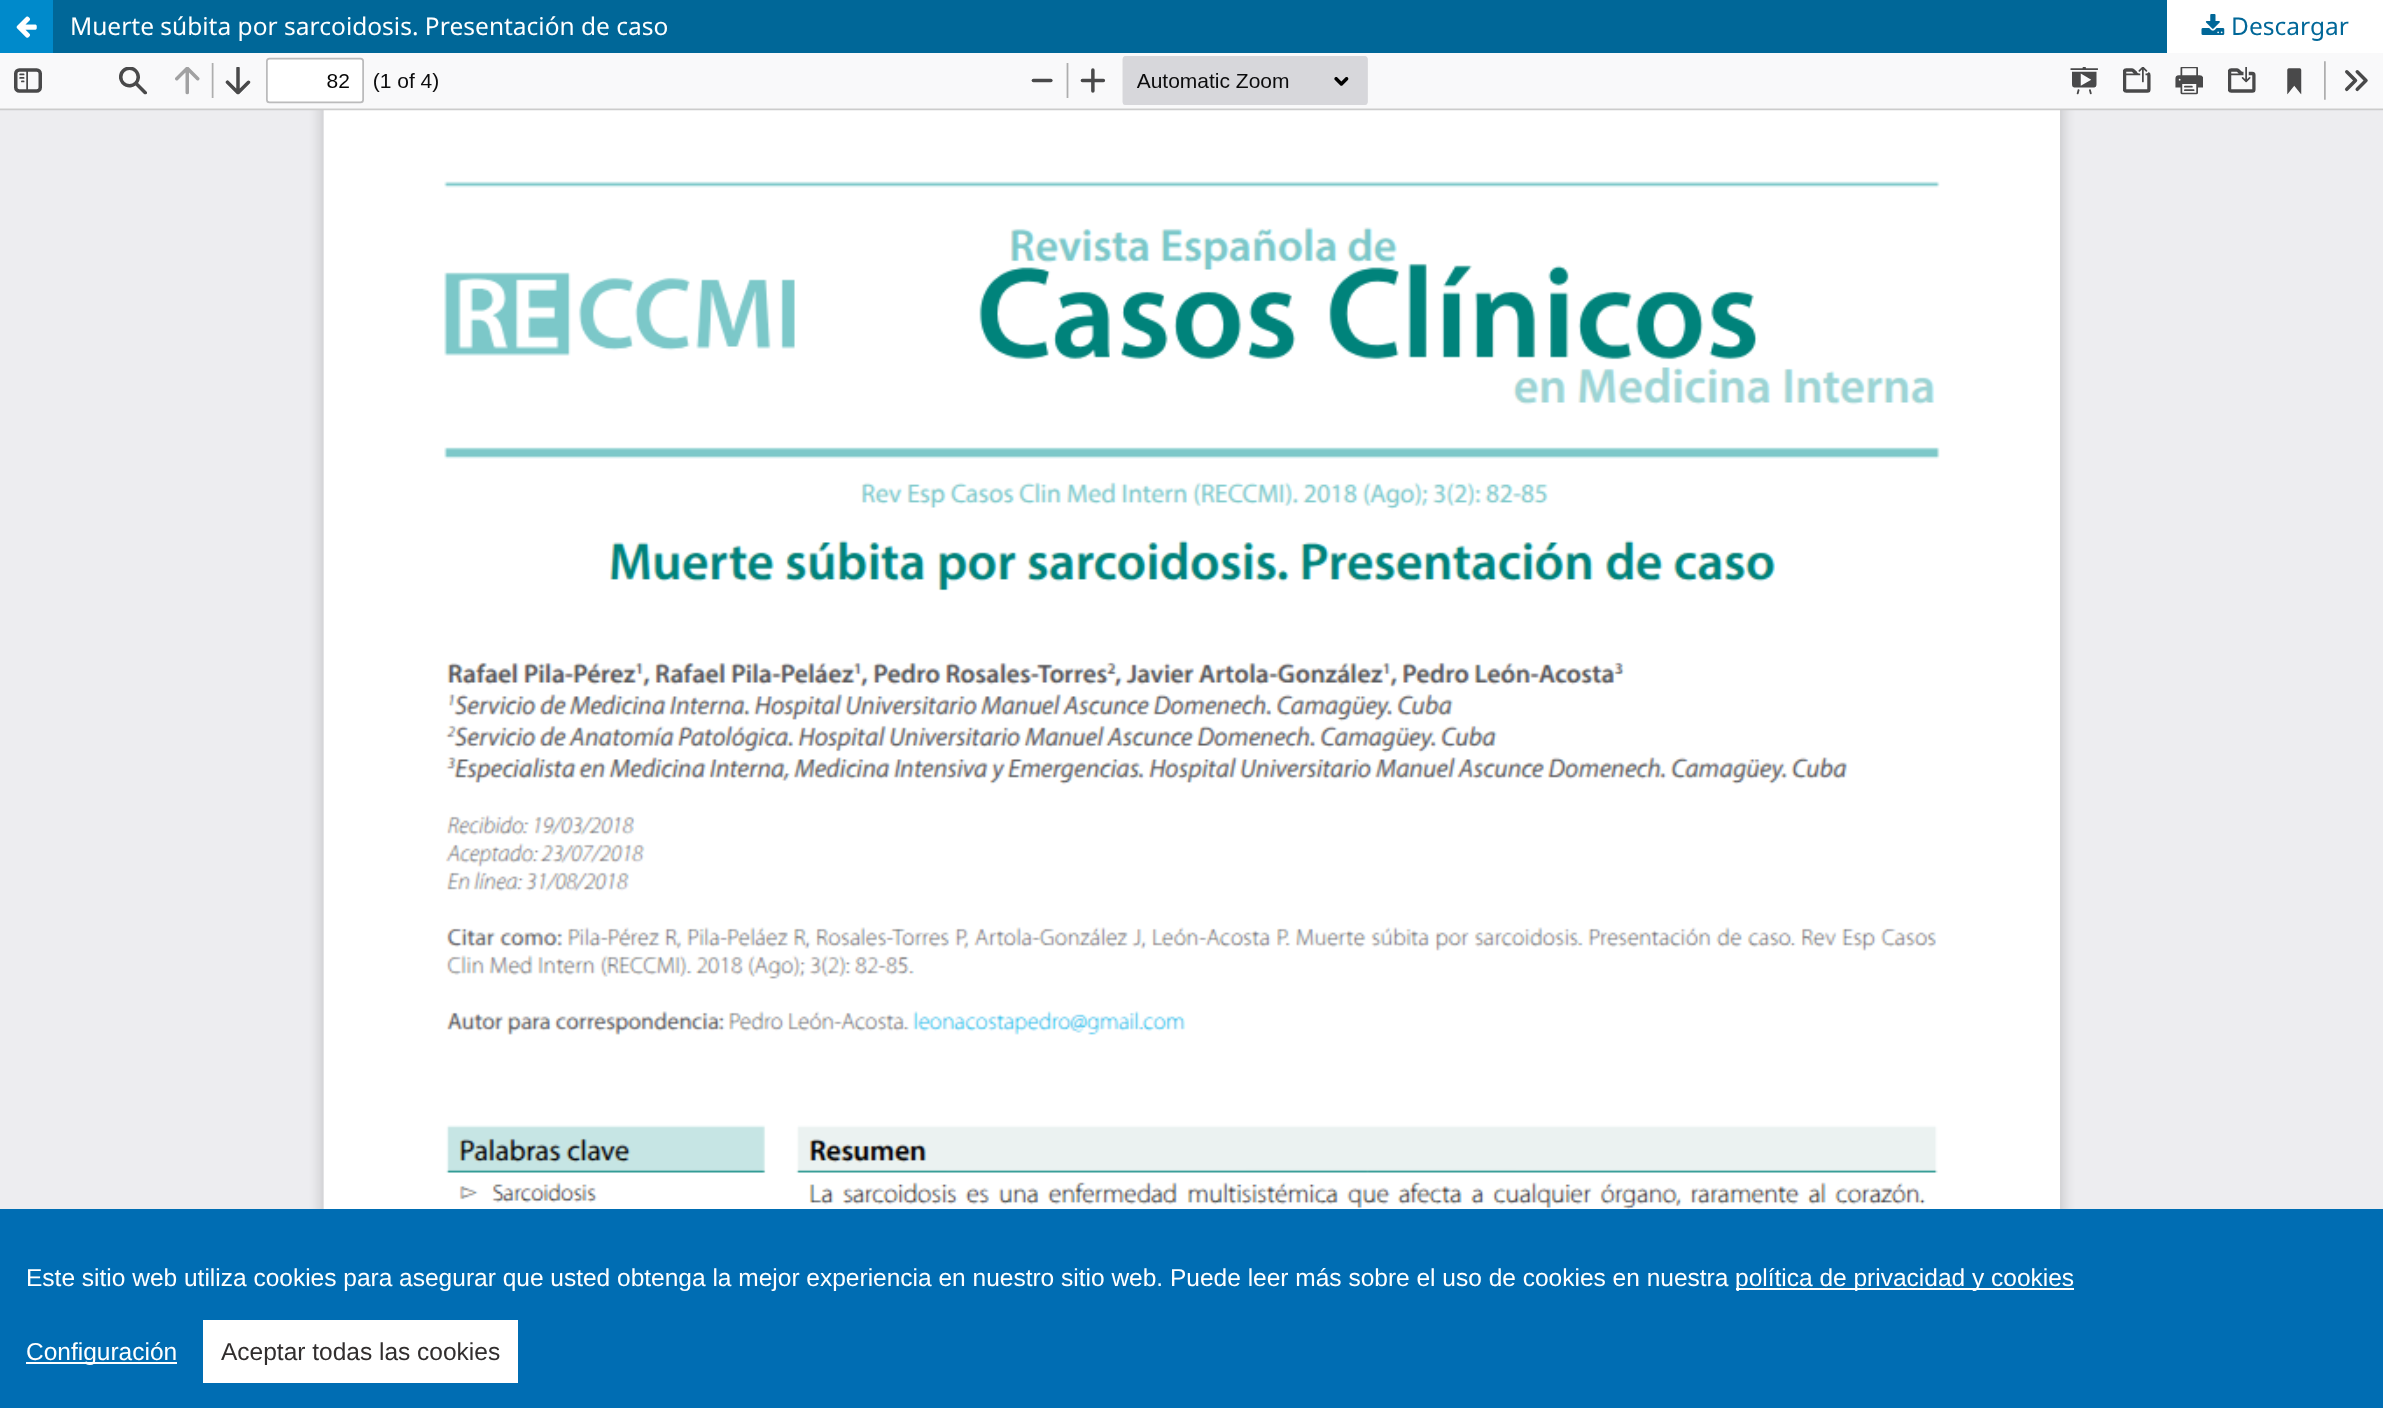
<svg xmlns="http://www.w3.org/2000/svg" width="2383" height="1408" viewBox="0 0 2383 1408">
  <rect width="100%" height="100%" fill="rgb(255,255,255)"/>
  <rect x="53" y="0" width="2114" height="53" fill="rgb(0,103,152)"/>
  <rect x="0" y="0" width="53" height="53" fill="rgb(0,138,203)"/>
  <image x="16" y="16" width="21" height="22" href="pic1.png"/>
  <text x="70" y="35" font-family="Noto Sans" font-size="24.5" fill="rgb(255,255,255)">Muerte súbita por sarcoidosis. Presentación de caso</text>
  <image x="2201" y="14" width="24" height="21" href="pic2.png"/>
  <text x="2231" y="35" font-family="Noto Sans" font-size="24.5" fill="rgb(0,103,152)">Descargar</text>
  <image x="0" y="53" width="2383" height="1156" href="pic3.png"/>
  <rect x="0" y="1209" width="2383" height="199" fill="rgb(0,109,179)"/>
  <text x="26" y="1286" font-family="Liberation Sans" font-size="24.5" fill="rgb(255,255,255)">Este sitio web utiliza cookies para asegurar que usted obtenga la mejor experiencia en nuestro sitio web. Puede leer más sobre el uso de cookies en nuestra</text>
  <rect x="1736" y="1288" width="338" height="2" fill="rgb(255,255,255)"/>
  <text x="1735" y="1286" font-family="Liberation Sans" font-size="24.5" fill="rgb(255,255,255)">política de privacidad y cookies</text>
  <rect x="26" y="1362" width="151" height="2" fill="rgb(255,255,255)"/>
  <text x="26" y="1360" font-family="Liberation Sans" font-size="24.5" fill="rgb(255,255,255)">Configuración</text>
  <rect x="203" y="1320" width="315" height="63" fill="rgb(255,255,255)"/>
  <text x="221" y="1360" font-family="Liberation Sans" font-size="24.5" fill="rgb(49,46,46)">Aceptar todas las cookies</text>
</svg>
